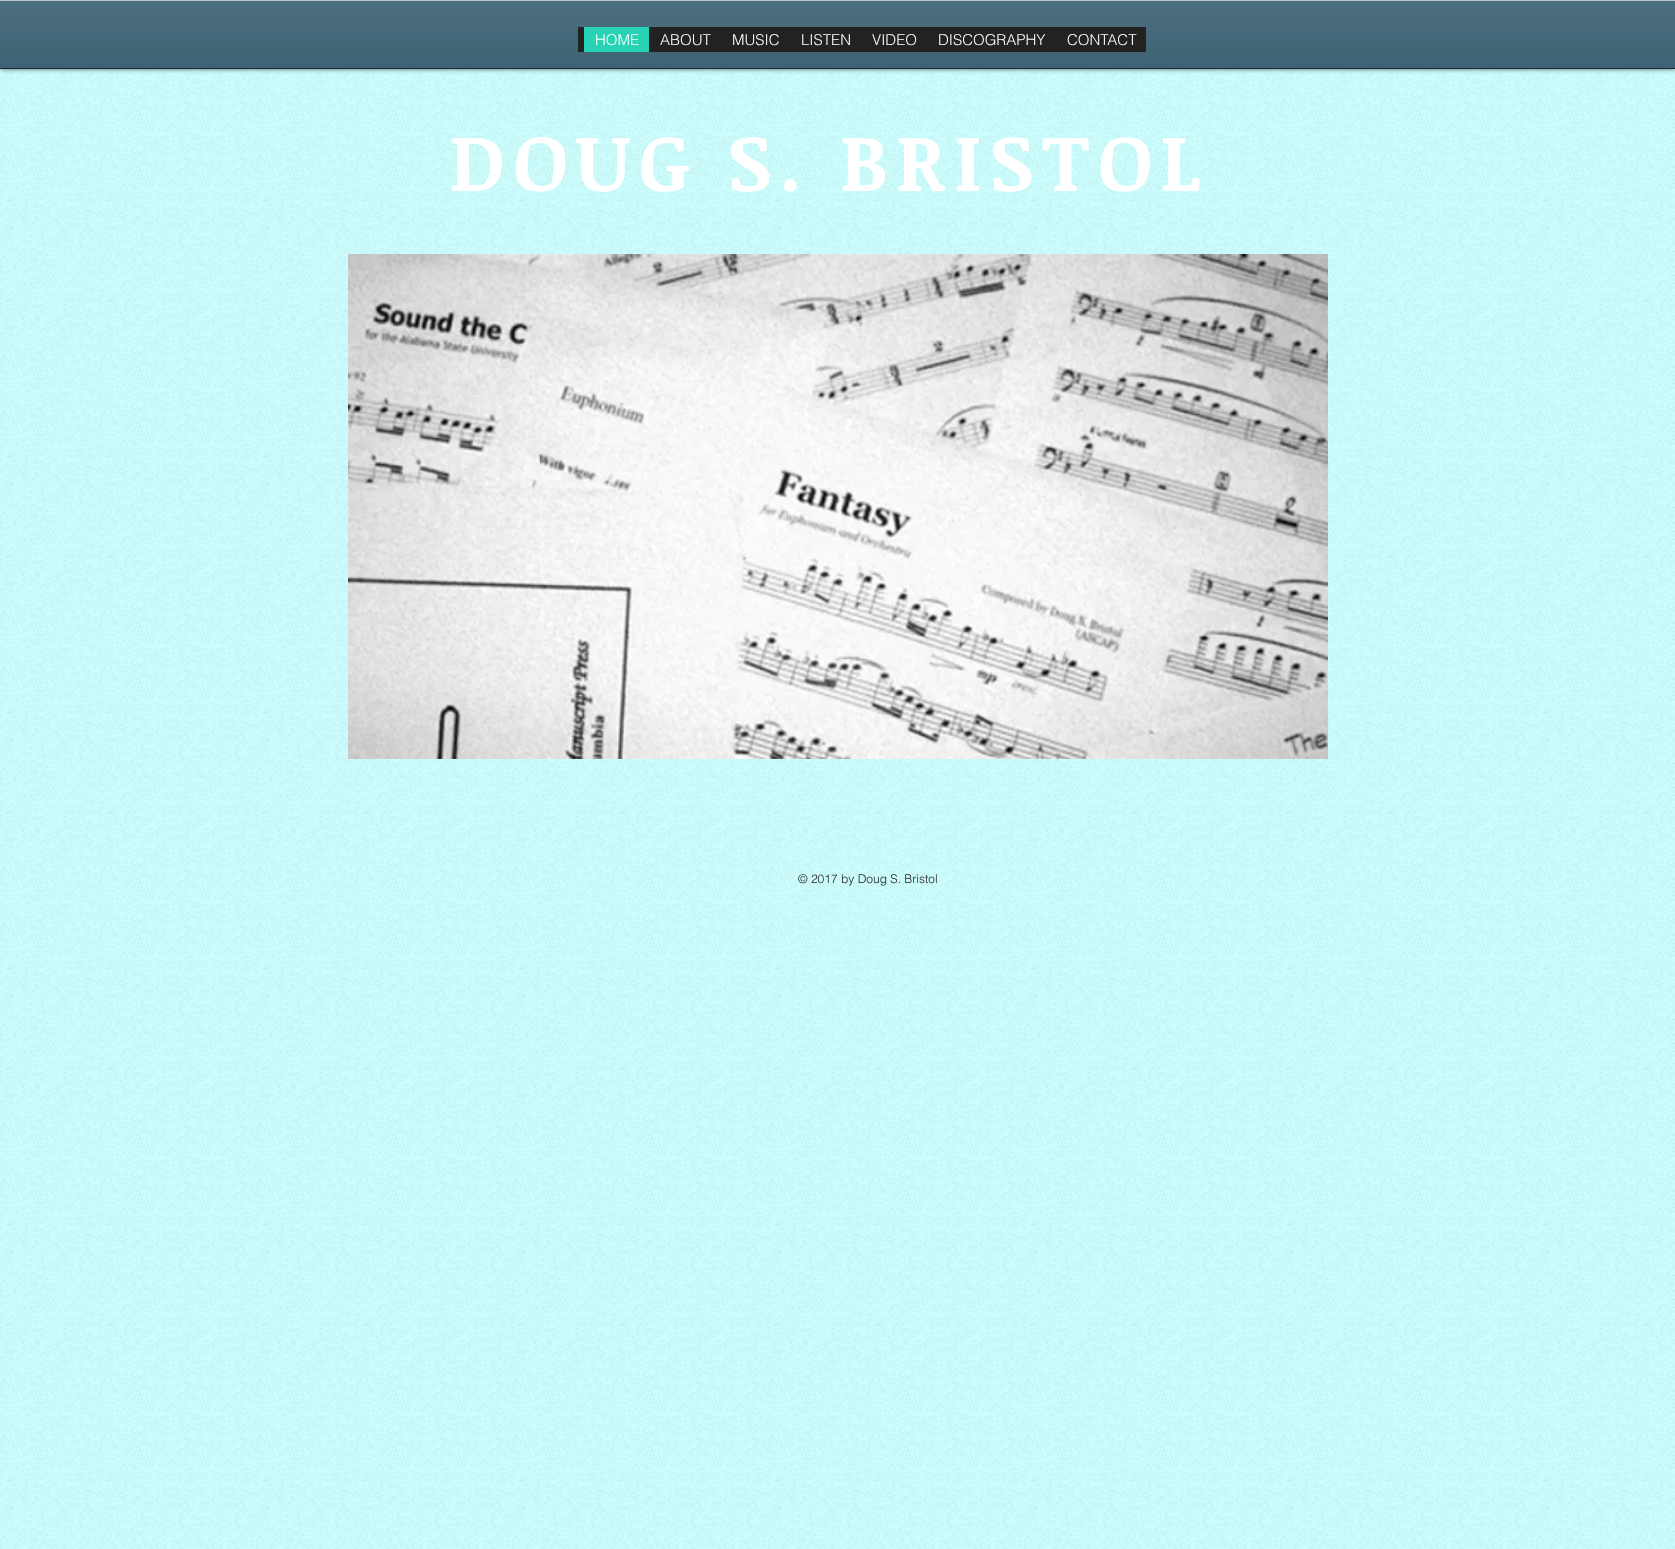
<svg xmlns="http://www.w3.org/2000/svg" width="1675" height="1549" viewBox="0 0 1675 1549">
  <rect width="100%" height="100%" fill="rgb(207,255,255)"/>
  <image x="0" y="69" width="1675" height="1480" href="pic3.png"/>
  <rect x="0" y="0" width="1675" height="69" fill="rgba(0,0,0,0.6)" filter="blur(2.5px)"/>
  <rect x="0" y="1" width="1675" height="67" fill="rgb(16,63,84)"/>
  <image x="0" y="1" width="1675" height="67" href="pic1.png"/>
  <rect x="0" y="68" width="1675" height="1" fill="rgb(24,40,46)"/>
  <rect x="0" y="0" width="1675" height="1" fill="rgb(184,198,204)"/>
  <rect x="578" y="27" width="568" height="25" fill="rgb(34,34,34)"/>
  <rect x="584" y="27" width="65" height="25" fill="rgb(39,211,180)"/>
  <g font-family="helvetica" font-size="15" font-weight="300" fill="rgb(255,255,255)">
    <text x="595" y="45">HOME</text>
    <text x="660" y="45">ABOUT</text>
    <text x="732" y="45">MUSIC</text>
    <text x="801" y="45">LISTEN</text>
    <text x="872" y="45">VIDEO</text>
    <text x="938" y="45">DISCOGRAPHY</text>
    <text x="1067" y="45">CONTACT</text>
  </g>
  <text x="449" y="191" font-family="Noticia Text" font-size="80" font-weight="bold" letter-spacing="8" fill="rgb(255,255,255)">DOUG S. BRISTOL</text>
  <image x="348" y="254" width="980" height="505" href="pic2.png"/>
  <text x="798" y="883" font-family="helvetica" font-size="12" font-weight="300" fill="rgb(34,34,34)">© 2017 by Doug S. Bristol</text>
</svg>
